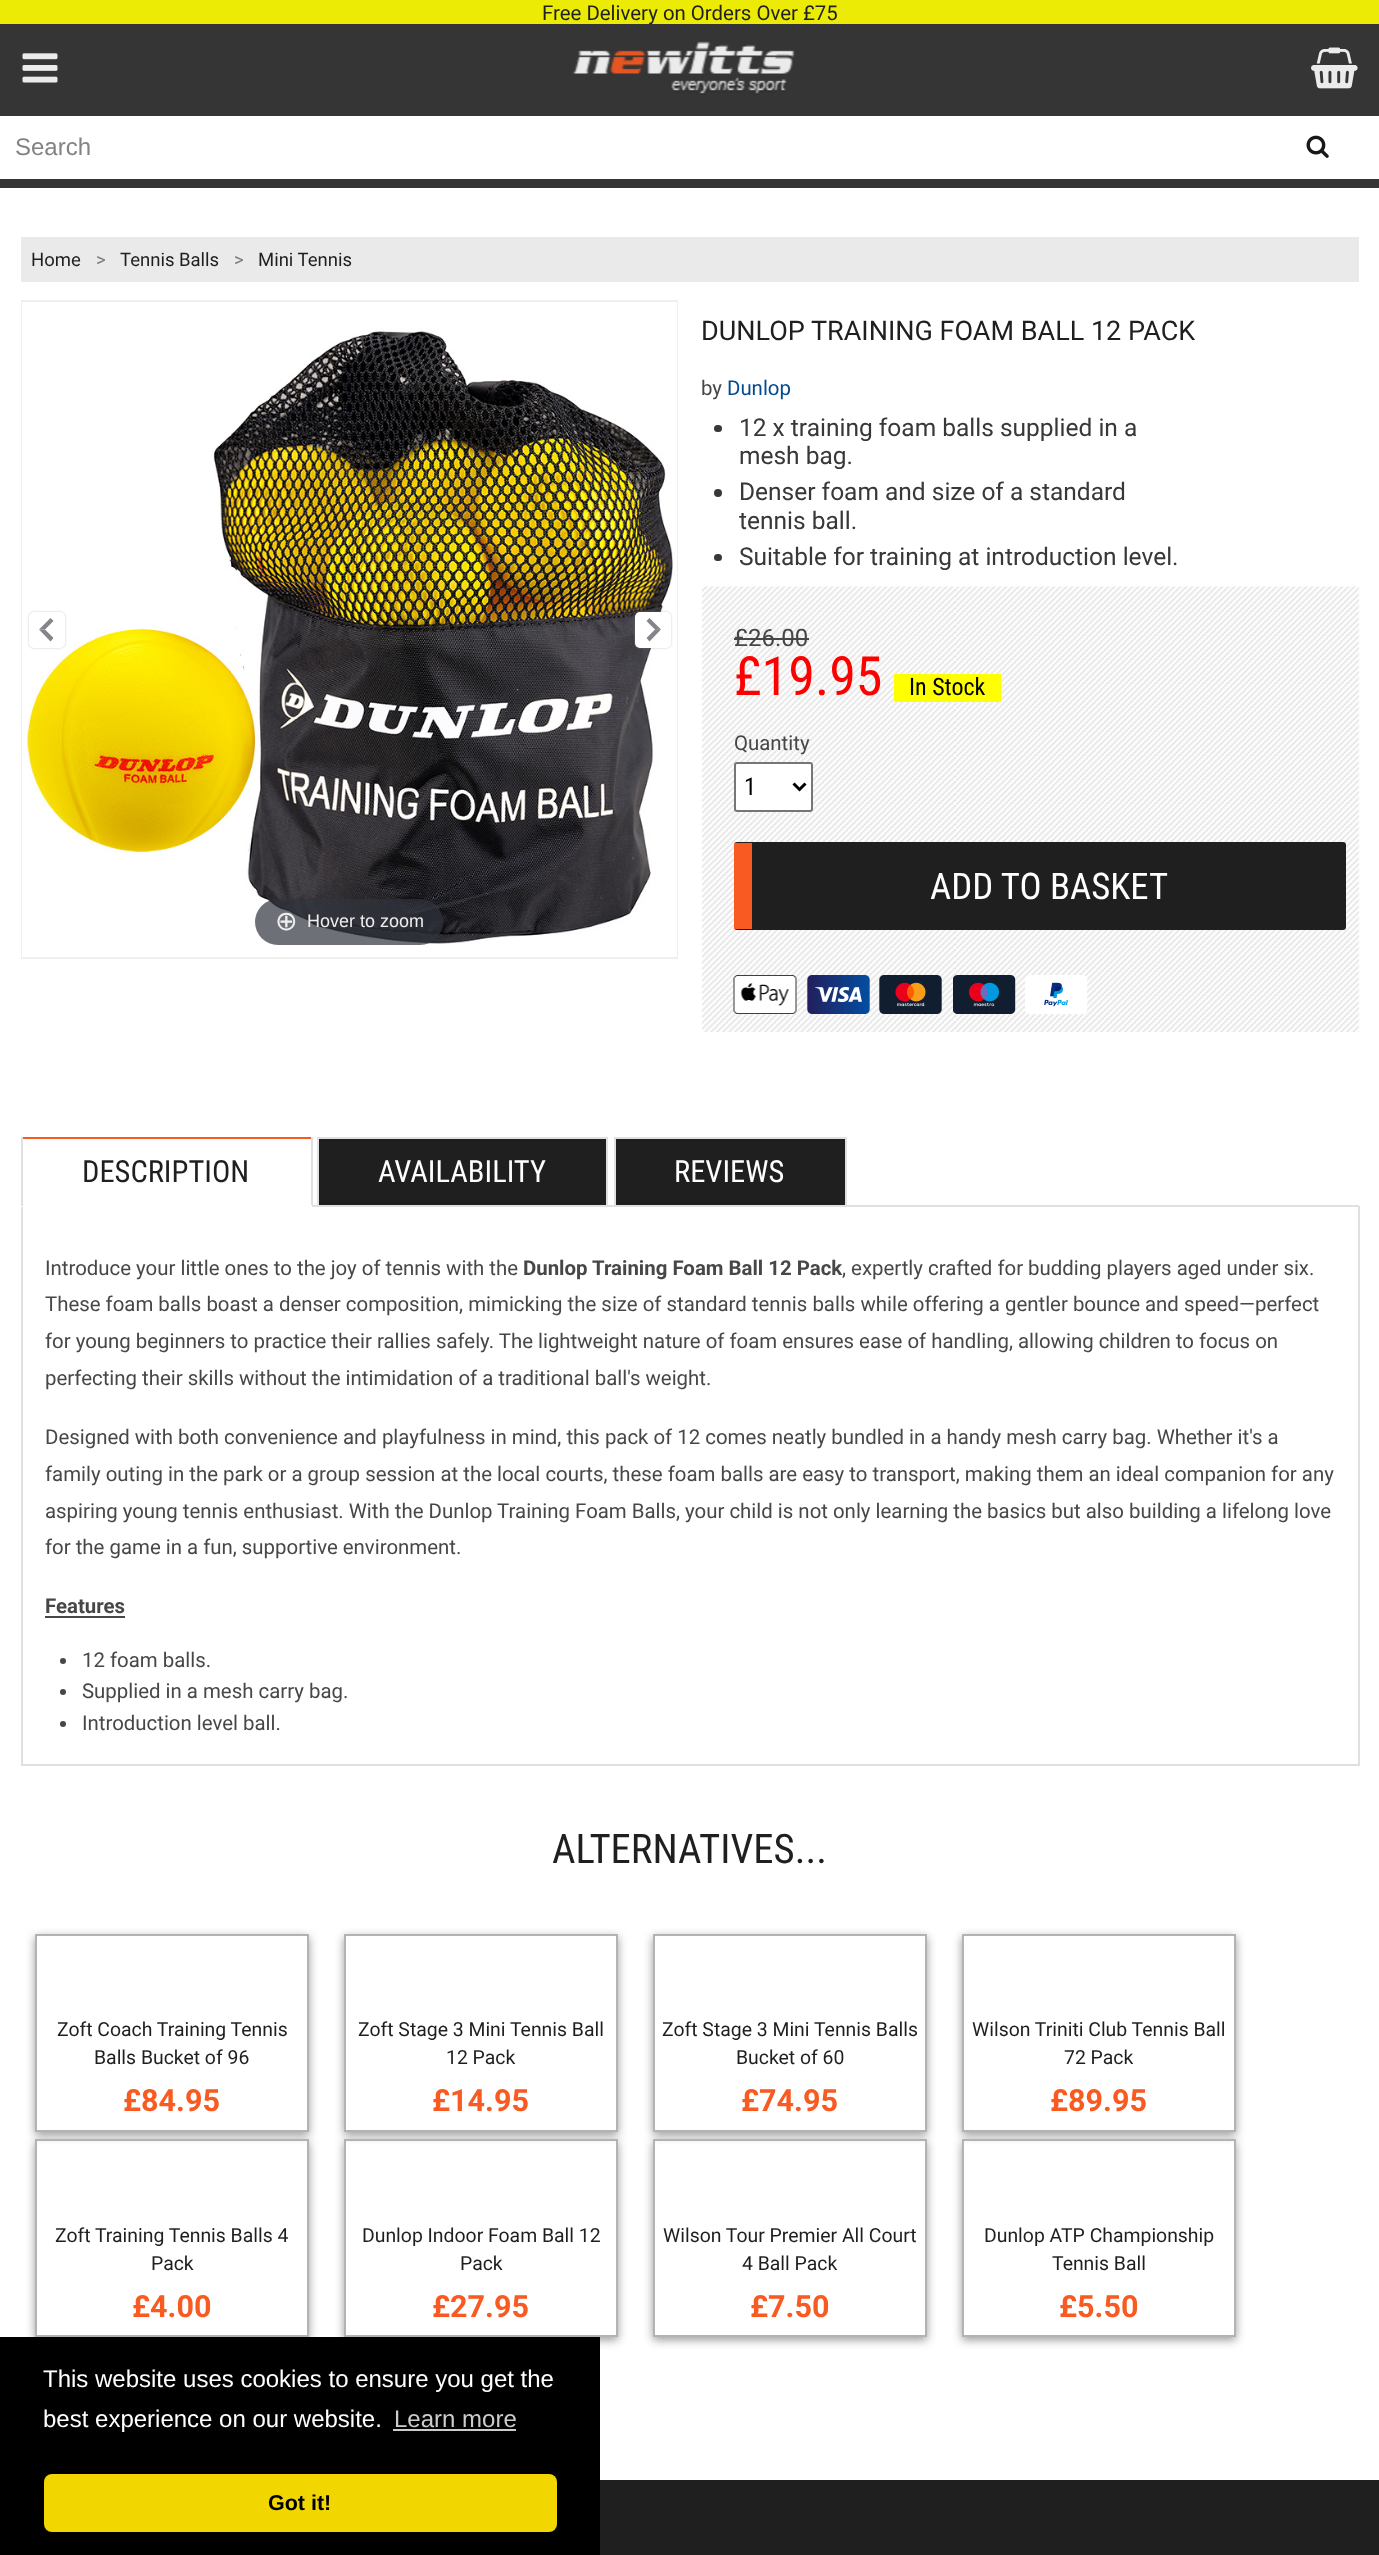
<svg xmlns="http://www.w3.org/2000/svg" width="1379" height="2555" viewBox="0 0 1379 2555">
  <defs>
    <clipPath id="clip1"><rect x="21" y="300" width="657" height="659"/></clipPath>
    <clipPath id="clip2"><path d="M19 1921H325V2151H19ZM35 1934H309V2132H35Z" clip-rule="evenodd"/></clipPath>
    <clipPath id="clip3"><path d="M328 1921H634V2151H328ZM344 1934H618V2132H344Z" clip-rule="evenodd"/></clipPath>
    <clipPath id="clip4"><path d="M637 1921H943V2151H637ZM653 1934H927V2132H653Z" clip-rule="evenodd"/></clipPath>
    <clipPath id="clip5"><path d="M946 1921H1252V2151H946ZM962 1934H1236V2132H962Z" clip-rule="evenodd"/></clipPath>
    <clipPath id="clip6"><path d="M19 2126H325V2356H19ZM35 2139H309V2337H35Z" clip-rule="evenodd"/></clipPath>
    <clipPath id="clip7"><path d="M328 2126H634V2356H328ZM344 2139H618V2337H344Z" clip-rule="evenodd"/></clipPath>
    <clipPath id="clip8"><path d="M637 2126H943V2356H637ZM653 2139H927V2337H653Z" clip-rule="evenodd"/></clipPath>
    <clipPath id="clip9"><path d="M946 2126H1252V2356H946ZM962 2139H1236V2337H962Z" clip-rule="evenodd"/></clipPath>
  </defs>
  <rect width="100%" height="100%" fill="rgb(255,255,255)"/>
  <rect x="0" y="24" width="1379" height="164" fill="rgb(53,53,53)"/>
  <rect x="0" y="0" width="1379" height="24" fill="rgb(235,235,5)"/>
  <text x="542" y="20" font-family="Roboto" font-size="20.4" fill="rgb(31,31,31)">Free Delivery on Orders Over £75</text>
  <image x="22" y="53" width="36" height="30" href="pic1.png"/>
  <image x="572" y="41" width="223" height="54" href="pic2.png"/>
  <image x="1311" y="47" width="47" height="42" href="pic3.png"/>
  <rect x="0" y="116" width="1379" height="63" fill="rgb(255,255,255)"/>
  <text x="15" y="155" font-family="Liberation Sans" font-size="24" fill="rgb(131,131,131)">Search</text>
  <image x="1306" y="135" width="23" height="23" href="pic4.png"/>
  <rect x="21" y="237" width="1338" height="45" fill="rgb(234,234,234)"/>
  <text x="31" y="266" font-family="Roboto" font-size="18.5" fill="rgb(31,31,31)">Home</text>
  <text x="96" y="266" font-family="Roboto" font-size="18.5" fill="rgb(119,119,119)">&gt;</text>
  <text x="120" y="266" font-family="Roboto" font-size="18.5" fill="rgb(31,31,31)">Tennis Balls</text>
  <text x="234" y="266" font-family="Roboto" font-size="18.5" fill="rgb(119,119,119)">&gt;</text>
  <text x="258" y="266" font-family="Roboto" font-size="18.5" fill="rgb(31,31,31)">Mini Tennis</text>
  <text x="701" y="340" font-family="Roboto" font-size="27" fill="rgb(31,31,31)">DUNLOP TRAINING FOAM BALL 12 PACK</text>
  <text x="701" y="395" font-family="Roboto" font-size="20.4" fill="rgb(71,71,71)">by</text>
  <text x="727" y="395" font-family="Roboto" font-size="20.4" fill="rgb(0,75,145)">Dunlop</text>
  <rect x="714" y="425" width="8" height="7" rx="3.5" fill="rgb(57,55,55)"/>
  <g font-family="Roboto" font-size="24.5" fill="rgb(57,55,55)">
    <text>
      <tspan x="739" y="436">12 x training foam balls supplied in a</tspan>
      <tspan x="739" y="464">mesh bag.</tspan>
    </text>
  </g>
  <circle cx="718" cy="493" r="4" fill="rgb(57,55,55)"/>
  <g font-family="Roboto" font-size="24.5" fill="rgb(57,55,55)">
    <text>
      <tspan x="739" y="500">Denser foam and size of a standard</tspan>
      <tspan x="739" y="529">tennis ball.</tspan>
    </text>
  </g>
  <rect x="714" y="554" width="8" height="7" rx="3.5" fill="rgb(57,55,55)"/>
  <text x="739" y="565" font-family="Roboto" font-size="24.5" fill="rgb(57,55,55)">Suitable for training at introduction level.</text>
  <image x="701" y="586" width="659" height="446" href="pic5.png"/>
  <text x="734" y="646" font-family="Roboto" font-size="24" fill="rgb(71,71,71)">£26.00</text>
  <rect x="734" y="638" width="75" height="2" fill="rgb(71,71,71)"/>
  <text x="734" y="695" font-family="Roboto Condensed" font-size="54" fill="rgb(255,0,0)">£19.95</text>
  <rect x="894" y="674" width="107" height="28" fill="rgb(255,255,0)"/>
  <text x="909" y="695" font-family="Roboto Condensed" font-size="24" fill="rgb(0,0,0)">In Stock</text>
  <text x="734" y="750" font-family="Roboto" font-size="20.4" fill="rgb(71,71,71)">Quantity</text>
  <rect x="735" y="763" width="77" height="48" rx="2" fill="rgb(255,255,255)" stroke="rgb(118,118,118)" stroke-width="2"/>
  <path d="M793.5 783.5L799.5 789.5L805.5 783.5" fill="none" stroke="rgb(0,0,0)" stroke-width="3"/>
  <text x="744" y="795" font-family="Roboto Condensed" font-size="24.5" fill="rgb(0,0,0)">1</text>
  <rect x="734" y="842" width="612" height="88" rx="3" fill="rgb(31,31,31)"/>
  <rect x="734" y="843" width="18" height="86" fill="rgb(249,90,33)"/>
  <text x="930" y="899" font-family="Roboto Condensed" font-size="36.75" fill="rgb(255,255,255)">ADD TO BASKET</text>
  <image x="733" y="975" width="64" height="39" href="pic6.png"/>
  <image x="807" y="975" width="63" height="39" href="pic7.png"/>
  <image x="879" y="975" width="63" height="39" href="pic8.png"/>
  <image x="953" y="975" width="63" height="39" href="pic9.png"/>
  <image x="1025" y="975" width="63" height="39" href="pic10.png"/>
  <g clip-path="url(#clip1)">
    <rect x="21" y="301" width="656" height="657" fill="none" stroke="rgb(239,239,239)" stroke-width="2"/>
  </g>
  <image x="23" y="302" width="654" height="655" href="pic11.png"/>
  <rect x="29" y="612" width="36" height="36" rx="5" fill="rgba(153,153,153,0.5)" filter="blur(1px)"/>
  <rect x="29" y="612" width="36" height="36" rx="5" fill="rgb(255,255,255)"/>
  <path d="M39 629.5L50.5 618L53.5 621L45 629.5Z" fill="rgb(131,133,139)"/>
  <path d="M50.5 641.5L39 629.5H45L53.5 638Z" fill="rgb(131,133,139)"/>
  <rect x="635" y="612" width="36" height="36" rx="5" fill="rgba(153,153,153,0.5)" filter="blur(1px)"/>
  <rect x="635" y="612" width="36" height="36" rx="5" fill="rgb(255,255,255)"/>
  <path d="M661 629.5L649.5 641.5L646.5 638L655 629.5Z" fill="rgb(131,133,139)"/>
  <path d="M649.5 618L661 629.5H655L646.5 621Z" fill="rgba(49,51,61,0.6)"/>
  <rect x="255" y="899" width="188" height="46" rx="23" fill="rgba(49,51,61,0.7)"/>
  <text x="275" y="930" font-family="DejaVu Sans" font-size="27" fill="rgb(238,238,238)">⊕</text>
  <text x="307" y="927" font-family="Liberation Sans" font-size="18" fill="rgb(238,238,238)">Hover to zoom</text>
  <rect x="312" y="1205" width="1047" height="2" fill="rgb(224,224,224)"/>
  <text x="82" y="1182" font-family="Roboto Condensed" font-size="30.5" fill="rgb(31,31,31)">DESCRIPTION</text>
  <rect x="21" y="1137" width="291" height="2" fill="rgb(249,90,33)"/>
  <rect x="311" y="1137" width="2" height="69" fill="rgb(224,224,224)"/>
  <rect x="1358" y="1206" width="2" height="560" fill="rgb(224,224,224)"/>
  <rect x="21" y="1764" width="1338" height="2" fill="rgb(224,224,224)"/>
  <rect x="21" y="1206" width="2" height="560" fill="rgb(224,224,224)"/>
  <rect x="21" y="1205" width="291" height="2" fill="rgb(255,255,255)"/>
  <rect x="21" y="1137" width="2" height="69" fill="rgb(224,224,224)"/>
  <rect x="319" y="1139" width="287" height="66" fill="rgb(31,31,31)"/>
  <rect x="317" y="1137" width="291" height="2" fill="rgb(224,224,224)"/>
  <rect x="606" y="1137" width="2" height="68" fill="rgb(224,224,224)"/>
  <rect x="317" y="1137" width="2" height="68" fill="rgb(224,224,224)"/>
  <text x="378" y="1182" font-family="Roboto Condensed" font-size="30.5" fill="rgb(255,255,255)">AVAILABILITY</text>
  <rect x="616" y="1139" width="229" height="66" fill="rgb(31,31,31)"/>
  <rect x="614" y="1137" width="232" height="2" fill="rgb(224,224,224)"/>
  <rect x="845" y="1137" width="2" height="68" fill="rgb(224,224,224)"/>
  <rect x="614" y="1137" width="2" height="68" fill="rgb(224,224,224)"/>
  <text x="674" y="1182" font-family="Roboto Condensed" font-size="30.5" fill="rgb(255,255,255)">REVIEWS</text>
  <text x="45" y="1275" font-family="Roboto" font-size="20.4" fill="rgb(71,71,71)">Introduce your little ones to the joy of tennis with the</text>
  <text x="523" y="1275" font-family="Roboto" font-size="20.4" font-weight="bold" fill="rgb(71,71,71)">Dunlop Training Foam Ball 12 Pack</text>
  <g font-family="Roboto" font-size="20.4" fill="rgb(71,71,71)">
    <text x="842" y="1275">, expertly crafted for budding players aged under six.</text>
    <text>
      <tspan x="45" y="1311">These foam balls boast a denser composition, mimicking the size of standard tennis balls while offering a gentler bounce and speed—perfect</tspan>
      <tspan x="45" y="1348">for young beginners to practice their rallies safely. The lightweight nature of foam ensures ease of handling, allowing children to focus on</tspan>
      <tspan x="45" y="1385">perfecting their skills without the intimidation of a traditional ball's weight.</tspan>
    </text>
    <text>
      <tspan x="45" y="1444">Designed with both convenience and playfulness in mind, this pack of 12 comes neatly bundled in a handy mesh carry bag. Whether it's a</tspan>
      <tspan x="45" y="1481">family outing in the park or a group session at the local courts, these foam balls are easy to transport, making them an ideal companion for any</tspan>
      <tspan x="45" y="1518">aspiring young tennis enthusiast. With the Dunlop Training Foam Balls, your child is not only learning the basics but also building a lifelong love</tspan>
      <tspan x="45" y="1554">for the game in a fun, supportive environment.</tspan>
    </text>
  </g>
  <text x="45" y="1613" font-family="Roboto" font-size="20.4" font-weight="bold" fill="rgb(71,71,71)">Features</text>
  <rect x="45" y="1616" width="80" height="2" fill="rgb(71,71,71)"/>
  <circle cx="63" cy="1661" r="3" fill="rgb(71,71,71)"/>
  <text x="82" y="1667" font-family="Roboto" font-size="20.4" fill="rgb(71,71,71)">12 foam balls.</text>
  <circle cx="63" cy="1692" r="3" fill="rgb(71,71,71)"/>
  <text x="82" y="1698" font-family="Roboto" font-size="20.4" fill="rgb(71,71,71)">Supplied in a mesh carry bag.</text>
  <circle cx="63" cy="1724" r="3" fill="rgb(71,71,71)"/>
  <text x="82" y="1730" font-family="Roboto" font-size="20.4" fill="rgb(71,71,71)">Introduction level ball.</text>
  <text x="552" y="1863" font-family="Roboto Condensed" font-size="40.75" fill="rgb(31,31,31)">ALTERNATIVES...</text>
  <g clip-path="url(#clip2)">
    <rect x="35" y="1937" width="274" height="198" fill="rgb(155,153,153)" filter="blur(5px)"/>
  </g>
  <rect x="36" y="1935" width="272" height="196" fill="none" stroke="rgb(179,179,179)" stroke-width="2"/>
  <g font-family="Roboto" font-size="19.4" fill="rgb(31,31,31)">
    <text x="57" y="2036">Zoft Coach Training Tennis</text>
    <text x="94" y="2064">Balls Bucket of 96</text>
  </g>
  <text x="123" y="2111" font-family="Roboto" font-size="30.5" font-weight="bold" fill="rgb(249,90,33)">£84.95</text>
  <g clip-path="url(#clip3)">
    <rect x="344" y="1937" width="274" height="198" fill="rgb(155,153,153)" filter="blur(5px)"/>
  </g>
  <rect x="345" y="1935" width="272" height="196" fill="none" stroke="rgb(179,179,179)" stroke-width="2"/>
  <g font-family="Roboto" font-size="19.4" fill="rgb(31,31,31)">
    <text x="358" y="2036">Zoft Stage 3 Mini Tennis Ball</text>
    <text x="446" y="2064">12 Pack</text>
  </g>
  <text x="432" y="2111" font-family="Roboto" font-size="30.5" font-weight="bold" fill="rgb(249,90,33)">£14.95</text>
  <g clip-path="url(#clip4)">
    <rect x="653" y="1937" width="274" height="198" fill="rgb(155,153,153)" filter="blur(5px)"/>
  </g>
  <rect x="654" y="1935" width="272" height="196" fill="none" stroke="rgb(179,179,179)" stroke-width="2"/>
  <g font-family="Roboto" font-size="19.4" fill="rgb(31,31,31)">
    <text x="662" y="2036">Zoft Stage 3 Mini Tennis Balls</text>
    <text x="736" y="2064">Bucket of 60</text>
  </g>
  <text x="741" y="2111" font-family="Roboto" font-size="30.5" font-weight="bold" fill="rgb(249,90,33)">£74.95</text>
  <g clip-path="url(#clip5)">
    <rect x="962" y="1937" width="274" height="198" fill="rgb(155,153,153)" filter="blur(5px)"/>
  </g>
  <rect x="963" y="1935" width="272" height="196" fill="none" stroke="rgb(179,179,179)" stroke-width="2"/>
  <g font-family="Roboto" font-size="19.4" fill="rgb(31,31,31)">
    <text x="972" y="2036">Wilson Triniti Club Tennis Ball</text>
    <text x="1064" y="2064">72 Pack</text>
  </g>
  <text x="1050" y="2111" font-family="Roboto" font-size="30.5" font-weight="bold" fill="rgb(249,90,33)">£89.95</text>
  <g clip-path="url(#clip6)">
    <rect x="35" y="2142" width="274" height="198" fill="rgb(155,153,153)" filter="blur(5px)"/>
  </g>
  <rect x="36" y="2140" width="272" height="196" fill="none" stroke="rgb(179,179,179)" stroke-width="2"/>
  <g font-family="Roboto" font-size="19.4" fill="rgb(31,31,31)">
    <text x="55" y="2242">Zoft Training Tennis Balls 4</text>
    <text x="151" y="2270">Pack</text>
  </g>
  <text x="132" y="2317" font-family="Roboto" font-size="30.5" font-weight="bold" fill="rgb(249,90,33)">£4.00</text>
  <g clip-path="url(#clip7)">
    <rect x="344" y="2142" width="274" height="198" fill="rgb(155,153,153)" filter="blur(5px)"/>
  </g>
  <rect x="345" y="2140" width="272" height="196" fill="none" stroke="rgb(179,179,179)" stroke-width="2"/>
  <g font-family="Roboto" font-size="19.4" fill="rgb(31,31,31)">
    <text x="362" y="2242">Dunlop Indoor Foam Ball 12</text>
    <text x="460" y="2270">Pack</text>
  </g>
  <text x="432" y="2317" font-family="Roboto" font-size="30.5" font-weight="bold" fill="rgb(249,90,33)">£27.95</text>
  <g clip-path="url(#clip8)">
    <rect x="653" y="2142" width="274" height="198" fill="rgb(155,153,153)" filter="blur(5px)"/>
  </g>
  <rect x="654" y="2140" width="272" height="196" fill="none" stroke="rgb(179,179,179)" stroke-width="2"/>
  <g font-family="Roboto" font-size="19.4" fill="rgb(31,31,31)">
    <text x="663" y="2242">Wilson Tour Premier All Court</text>
    <text x="742" y="2270">4 Ball Pack</text>
  </g>
  <text x="750" y="2317" font-family="Roboto" font-size="30.5" font-weight="bold" fill="rgb(249,90,33)">£7.50</text>
  <g clip-path="url(#clip9)">
    <rect x="962" y="2142" width="274" height="198" fill="rgb(155,153,153)" filter="blur(5px)"/>
  </g>
  <rect x="963" y="2140" width="272" height="196" fill="none" stroke="rgb(179,179,179)" stroke-width="2"/>
  <g font-family="Roboto" font-size="19.4" fill="rgb(31,31,31)">
    <text x="984" y="2242">Dunlop ATP Championship</text>
    <text x="1052" y="2270">Tennis Ball</text>
  </g>
  <text x="1059" y="2317" font-family="Roboto" font-size="30.5" font-weight="bold" fill="rgb(249,90,33)">£5.50</text>
  <rect x="600" y="2480" width="779" height="75" fill="rgb(31,31,31)"/>
  <rect x="0" y="2337" width="600" height="218" fill="rgb(0,0,0)"/>
  <g font-family="Liberation Sans" font-size="24" fill="rgb(255,255,255)">
    <text>
      <tspan x="43" y="2387">This website uses cookies to ensure you get the</tspan>
      <tspan x="43" y="2427">best experience on our website.</tspan>
    </text>
  </g>
  <text x="394" y="2427" font-family="Liberation Sans" font-size="24" fill="rgb(204,204,204)">Learn more</text>
  <rect x="393" y="2429" width="123" height="2" fill="rgb(204,204,204)"/>
  <rect x="44" y="2474" width="513" height="58" rx="8" fill="rgb(241,214,0)"/>
  <text x="268" y="2510" font-family="Liberation Sans" font-size="21.5" font-weight="bold" fill="rgb(0,0,0)">Got it!</text>
</svg>
